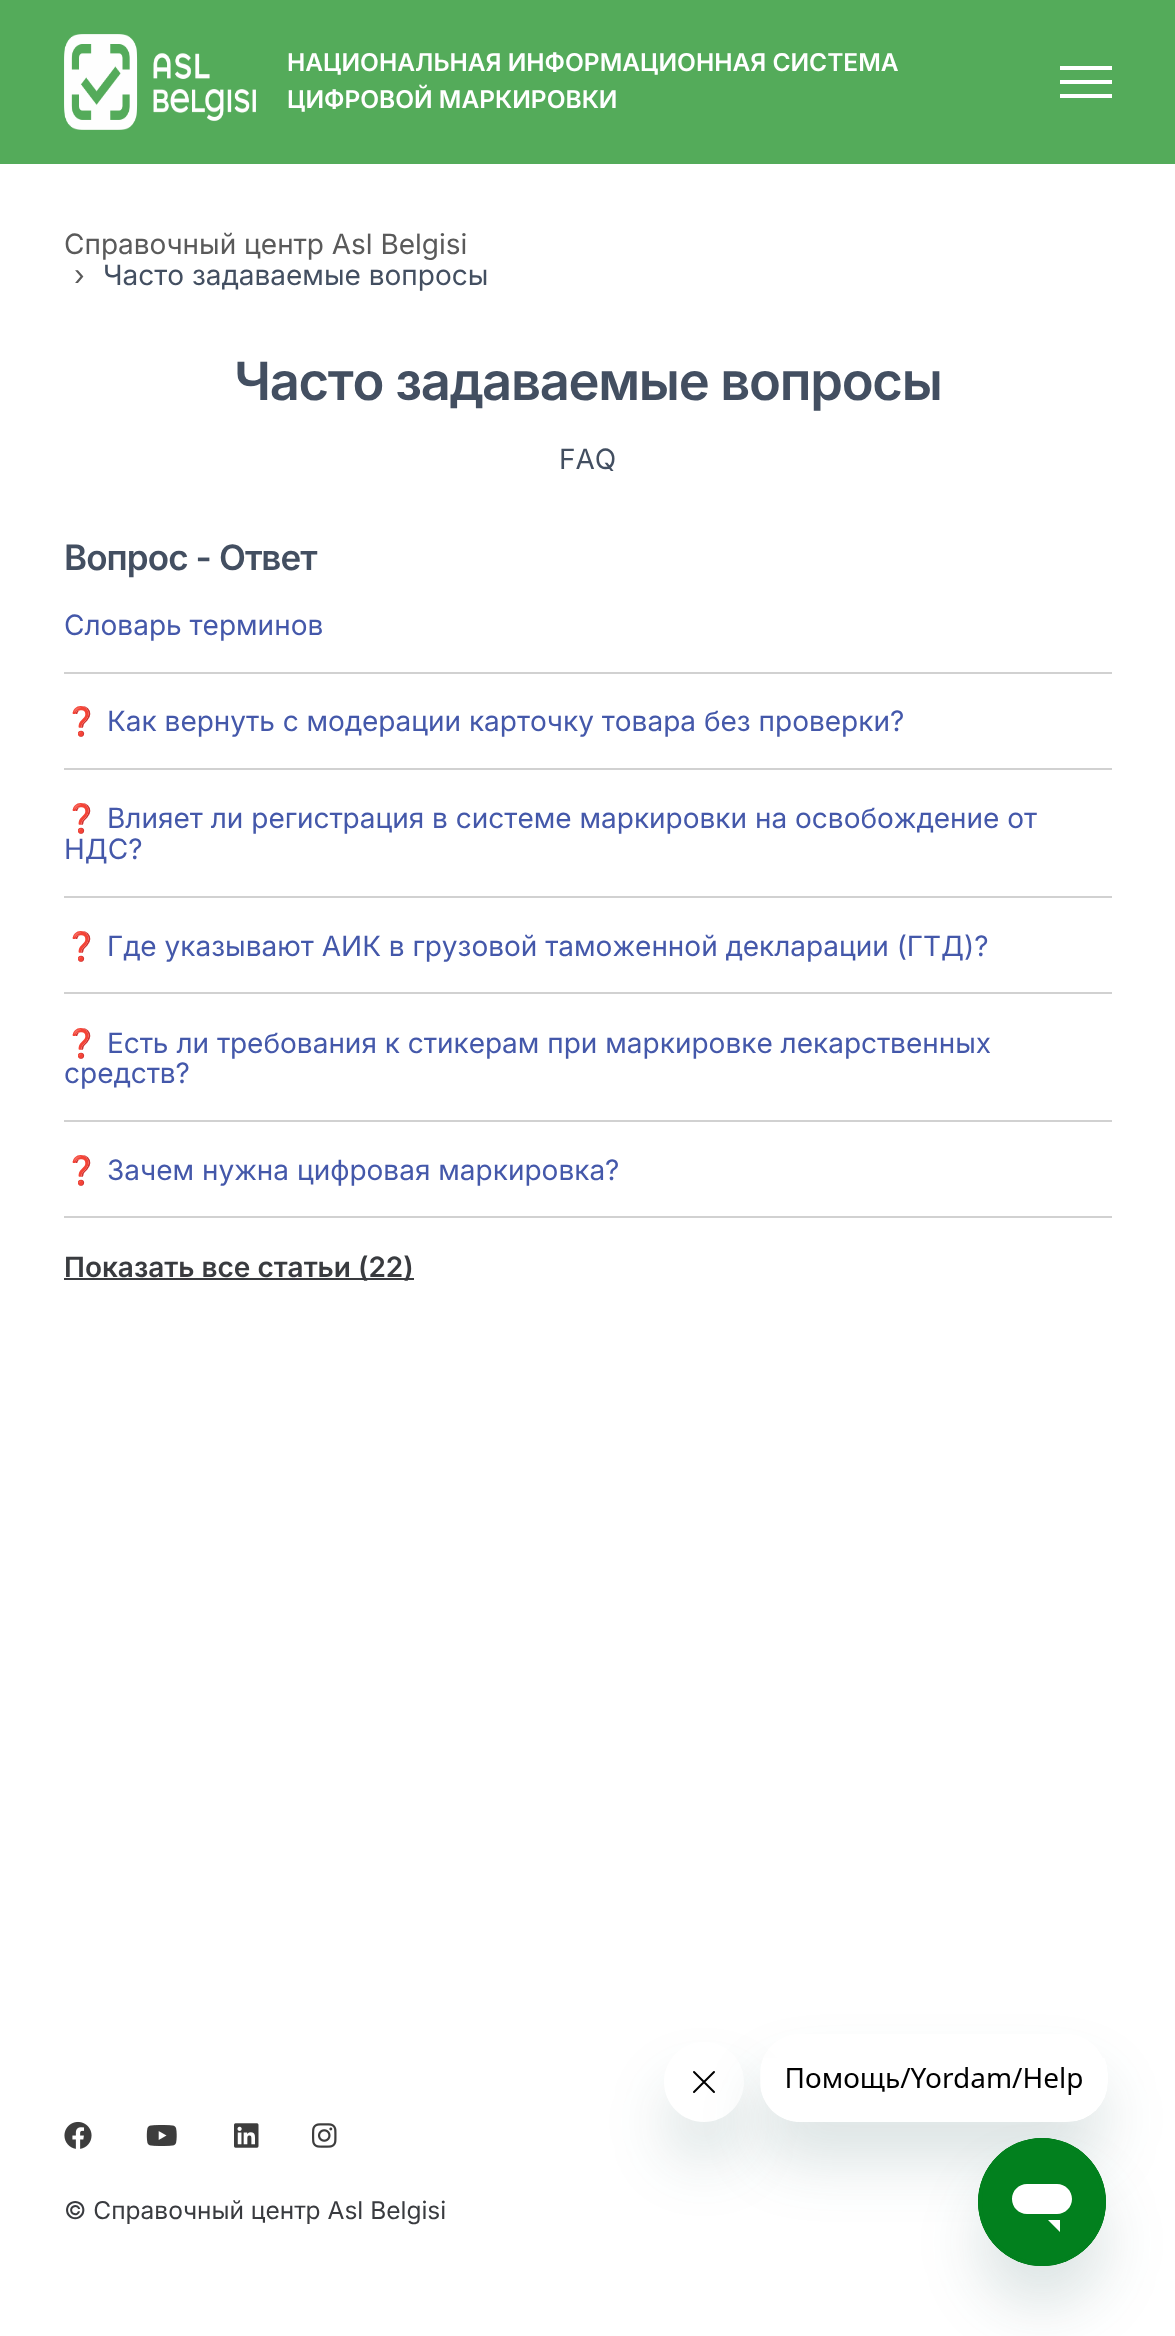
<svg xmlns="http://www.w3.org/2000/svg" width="1175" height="2336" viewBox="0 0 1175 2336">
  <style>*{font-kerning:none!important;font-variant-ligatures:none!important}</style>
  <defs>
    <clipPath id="clip1"><path d="M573 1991H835V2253H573ZM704 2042C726 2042 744 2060 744 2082C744 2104 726 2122 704 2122C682 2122 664 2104 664 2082C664 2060 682 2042 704 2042Z" clip-rule="evenodd"/></clipPath>
    <clipPath id="clip2"><path d="M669 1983H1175V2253H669ZM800 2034H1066C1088 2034 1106 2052 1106 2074V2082C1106 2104 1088 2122 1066 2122H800C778 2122 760 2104 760 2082V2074C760 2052 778 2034 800 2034Z" clip-rule="evenodd"/></clipPath>
  </defs>
  <rect width="100%" height="100%" fill="rgb(255,255,255)"/>
  <rect x="0" y="0" width="1175" height="164" fill="rgb(84,171,90)"/>
  <image x="64" y="34" width="192" height="96" href="pic1.png"/>
  <g font-family="Inter" font-size="24.5" font-weight="600" fill="rgb(255,255,255)">
    <text>
      <tspan x="287" y="71">НАЦИОНАЛЬНАЯ ИНФОРМАЦИОННАЯ СИСТЕМА</tspan>
      <tspan x="287" y="108">ЦИФРОВОЙ МАРКИРОВКИ</tspan>
    </text>
  </g>
  <rect x="1060" y="80" width="52" height="4" fill="rgb(255,255,255)"/>
  <rect x="1060" y="66" width="52" height="4" fill="rgb(255,255,255)"/>
  <rect x="1060" y="94" width="52" height="4" fill="rgb(255,255,255)"/>
  <g font-family="Inter" font-size="28" fill="rgb(90,90,90)">
    <text x="64" y="254">Справочный центр Asl Belgisi</text>
    <text x="74" y="285">›</text>
  </g>
  <text x="103" y="285" font-family="Inter" font-size="28" fill="rgb(67,79,97)">Часто задаваемые вопросы</text>
  <text x="234" y="400" font-family="Inter" font-size="52.5" font-weight="600" letter-spacing="-1.3" fill="rgb(67,79,97)">Часто задаваемые вопросы</text>
  <text x="559" y="469" font-family="Inter" font-size="28" fill="rgb(67,79,97)">FAQ</text>
  <text x="64" y="570" font-family="Inter" font-size="35" font-weight="600" letter-spacing="-0.9" fill="rgb(67,79,97)">Вопрос - Ответ</text>
  <rect x="64" y="672" width="1048" height="2" fill="rgb(209,209,209)"/>
  <text x="64" y="635" font-family="Inter" font-size="28" fill="rgb(68,88,170)">Словарь терминов</text>
  <rect x="64" y="768" width="1048" height="2" fill="rgb(209,209,209)"/>
  <text x="64" y="731" font-family="Noto Color Emoji" font-size="28" fill="rgb(68,88,170)">❓</text>
  <text x="107" y="731" font-family="Inter" font-size="28" fill="rgb(68,88,170)">Как вернуть с модерации карточку товара без проверки?</text>
  <rect x="64" y="896" width="1048" height="2" fill="rgb(209,209,209)"/>
  <text x="64" y="828" font-family="Noto Color Emoji" font-size="28" fill="rgb(68,88,170)">❓</text>
  <g font-family="Inter" font-size="28" fill="rgb(68,88,170)">
    <text x="107" y="828">Влияет ли регистрация в системе маркировки на освобождение от</text>
    <text x="64" y="859">НДС?</text>
  </g>
  <rect x="64" y="992" width="1048" height="2" fill="rgb(209,209,209)"/>
  <text x="64" y="956" font-family="Noto Color Emoji" font-size="28" fill="rgb(68,88,170)">❓</text>
  <text x="107" y="956" font-family="Inter" font-size="28" fill="rgb(68,88,170)">Где указывают АИК в грузовой таможенной декларации (ГТД)?</text>
  <rect x="64" y="1120" width="1048" height="2" fill="rgb(209,209,209)"/>
  <text x="64" y="1053" font-family="Noto Color Emoji" font-size="28" fill="rgb(68,88,170)">❓</text>
  <g font-family="Inter" font-size="28" fill="rgb(68,88,170)">
    <text x="107" y="1053">Есть ли требования к стикерам при маркировке лекарственных</text>
    <text x="64" y="1083">средств?</text>
  </g>
  <rect x="64" y="1216" width="1048" height="2" fill="rgb(209,209,209)"/>
  <text x="64" y="1180" font-family="Noto Color Emoji" font-size="28" fill="rgb(68,88,170)">❓</text>
  <text x="107" y="1180" font-family="Inter" font-size="28" fill="rgb(68,88,170)">Зачем нужна цифровая маркировка?</text>
  <rect x="64" y="1278" width="350" height="2" fill="rgb(57,59,63)"/>
  <text x="64" y="1277" font-family="Inter" font-size="28" font-weight="600" fill="rgb(57,59,63)">Показать все статьи (22)</text>
  <image x="64" y="2121" width="28" height="28" href="pic2.png"/>
  <image x="146" y="2125" width="31" height="21" href="pic3.png"/>
  <image x="234" y="2123" width="25" height="25" href="pic4.png"/>
  <image x="312" y="2123" width="25" height="25" href="pic5.png"/>
  <text x="64" y="2219" font-family="Inter" font-size="24.5" fill="rgb(57,59,63)">© Справочный центр Asl Belgisi</text>
  <g clip-path="url(#clip1)">
    <rect x="664" y="2082" width="80" height="80" rx="40" fill="rgba(23,73,77,0.15)" filter="blur(30px)"/>
  </g>
  <image x="693" y="2071" width="22" height="22" href="pic7.png"/>
  <g clip-path="url(#clip2)">
    <rect x="760" y="2074" width="346" height="88" rx="40" fill="rgba(23,73,77,0.15)" filter="blur(30px)"/>
  </g>
  <image x="761" y="2058" width="347" height="63" href="pic6.png"/>
  <rect x="978" y="2178" width="128" height="128" rx="64" fill="rgba(23,73,77,0.15)" filter="blur(30px)"/>
  <image x="978" y="2138" width="128" height="128" href="pic8.png"/>
</svg>
